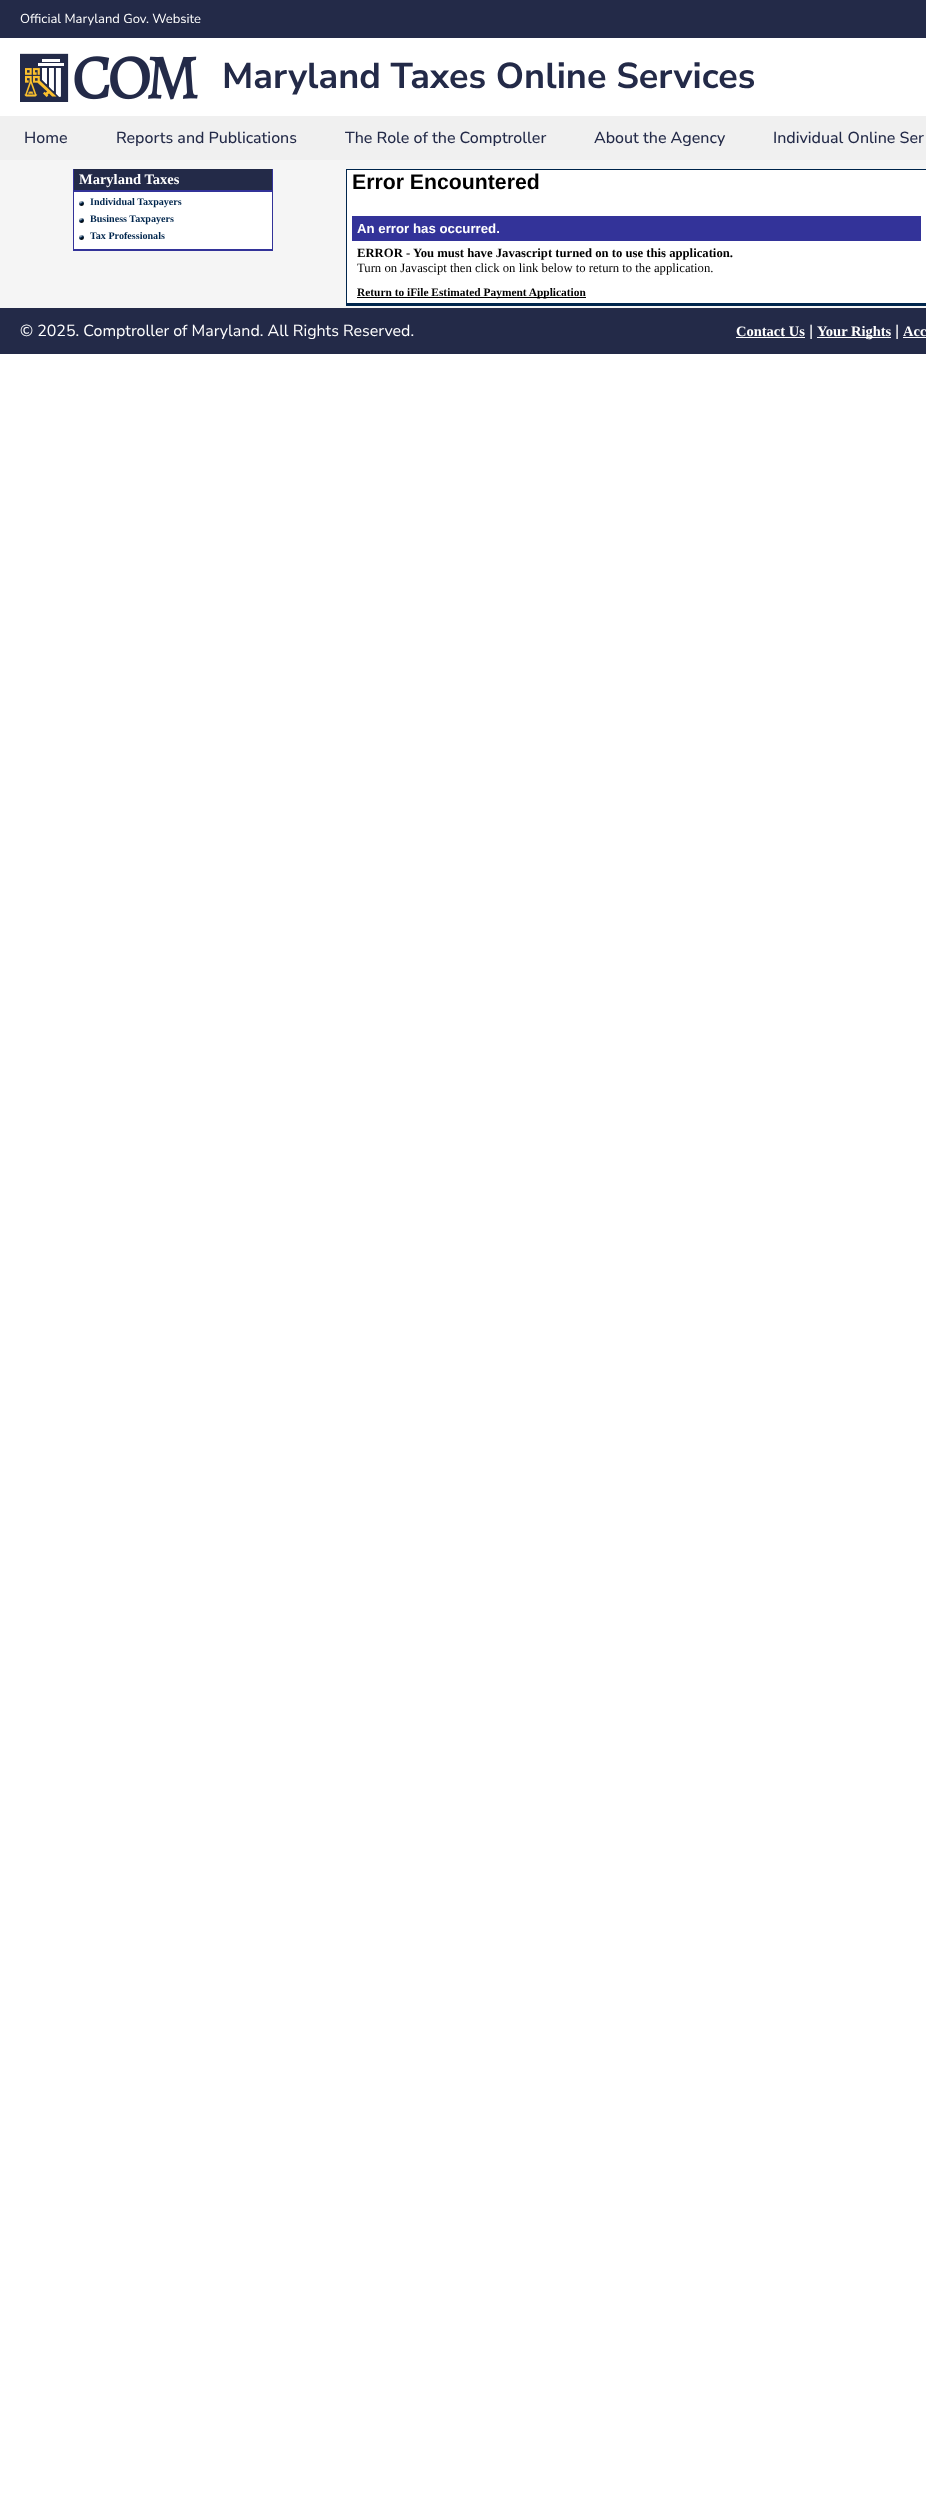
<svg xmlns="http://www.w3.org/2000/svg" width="926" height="2504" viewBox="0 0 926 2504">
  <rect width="100%" height="100%" fill="rgb(255,255,255)"/>
  <rect x="0" y="160" width="926" height="148" fill="rgb(245,245,245)"/>
  <rect x="0" y="0" width="926" height="38" fill="rgb(35,42,72)"/>
  <text x="20" y="23" font-family="Nunito Sans" font-size="13" fill="rgb(255,255,255)">Official Maryland Gov. Website</text>
  <image x="20" y="53" width="178" height="49" href="pic1.png"/>
  <text x="222" y="88" font-family="Nunito Sans" font-size="36" font-weight="bold" fill="rgb(35,42,72)">Maryland Taxes Online Services</text>
  <rect x="0" y="116" width="926" height="44" fill="rgb(240,240,240)"/>
  <g font-family="Nunito Sans" font-size="16" font-weight="500" fill="rgb(35,42,72)">
    <text x="24" y="143">Home</text>
    <text x="116" y="143">Reports and Publications</text>
    <text x="345" y="143">The Role of the Comptroller</text>
    <text x="594" y="143">About the Agency</text>
    <text x="773" y="143">Individual Online Ser</text>
  </g>
  <rect x="74" y="169" width="198" height="21" fill="rgb(35,42,72)"/>
  <rect x="272" y="169" width="1" height="82" fill="rgb(51,51,153)"/>
  <rect x="73" y="190" width="200" height="2" fill="rgb(51,51,153)"/>
  <rect x="73" y="169" width="1" height="23" fill="rgb(51,51,153)"/>
  <text x="79" y="184" font-family="Liberation Serif" font-size="14.5" font-weight="bold" fill="rgb(255,255,255)">Maryland Taxes</text>
  <rect x="74" y="192" width="198" height="57" fill="rgb(255,255,255)"/>
  <rect x="73" y="249" width="200" height="2" fill="rgb(51,51,153)"/>
  <rect x="73" y="192" width="1" height="59" fill="rgb(51,51,153)"/>
  <image x="79" y="201" width="5" height="5" href="pic2.png"/>
  <text x="90" y="205" font-family="Liberation Serif" font-size="10.1" font-weight="bold" fill="rgb(0,38,77)">Individual Taxpayers</text>
  <image x="79" y="218" width="5" height="5" href="pic2.png"/>
  <text x="90" y="222" font-family="Liberation Serif" font-size="10.1" font-weight="bold" fill="rgb(0,38,77)">Business Taxpayers</text>
  <image x="79" y="235" width="5" height="5" href="pic2.png"/>
  <text x="90" y="239" font-family="Liberation Serif" font-size="10.1" font-weight="bold" fill="rgb(0,38,77)">Tax Professionals</text>
  <rect x="347" y="170" width="579" height="133" fill="rgb(255,255,255)"/>
  <rect x="346" y="169" width="580" height="1" fill="rgb(0,38,77)"/>
  <rect x="346" y="303" width="580" height="3" fill="rgb(0,38,77)"/>
  <rect x="346" y="169" width="1" height="137" fill="rgb(0,38,77)"/>
  <text x="352" y="189" font-family="Liberation Sans" font-size="21.25" font-weight="bold" fill="rgb(0,0,0)">Error Encountered</text>
  <rect x="352" y="216" width="569" height="25" fill="rgb(51,51,153)"/>
  <text x="357" y="233" font-family="Liberation Sans" font-size="13.25" font-weight="bold" fill="rgb(255,255,255)">An error has occurred.</text>
  <text x="357" y="257" font-family="Liberation Serif" font-size="12.7" font-weight="bold" fill="rgb(0,0,0)">ERROR - You must have Javascript turned on to use this application.</text>
  <text x="357" y="272" font-family="Liberation Serif" font-size="12.7" fill="rgb(0,0,0)">Turn on Javascipt then click on link below to return to the application.</text>
  <rect x="357" y="297" width="229" height="1" fill="rgb(0,0,0)"/>
  <text x="357" y="296" font-family="Liberation Serif" font-size="11.4" font-weight="bold" fill="rgb(0,0,0)">Return to iFile Estimated Payment Application</text>
  <rect x="0" y="308" width="926" height="46" fill="rgb(35,42,72)"/>
  <text x="20" y="336" font-family="Nunito Sans" font-size="16" fill="rgb(255,255,255)">© 2025. Comptroller of Maryland. All Rights Reserved.</text>
  <text x="736" y="336" font-family="Liberation Serif" font-size="14.5" font-weight="bold" fill="rgb(255,255,255)">Contact Us</text>
  <rect x="736" y="337" width="69" height="1" fill="rgb(255,255,255)"/>
  <text x="809" y="336" font-family="Nunito Sans" font-size="16" fill="rgb(255,255,255)">|</text>
  <rect x="817" y="337" width="74" height="1" fill="rgb(255,255,255)"/>
  <text x="817" y="336" font-family="Liberation Serif" font-size="14.5" font-weight="bold" fill="rgb(255,255,255)">Your Rights</text>
  <text x="895" y="336" font-family="Nunito Sans" font-size="16" fill="rgb(255,255,255)">|</text>
  <text x="903" y="336" font-family="Liberation Serif" font-size="14.5" font-weight="bold" fill="rgb(255,255,255)">Acc</text>
  <rect x="903" y="337" width="23" height="1" fill="rgb(255,255,255)"/>
</svg>
